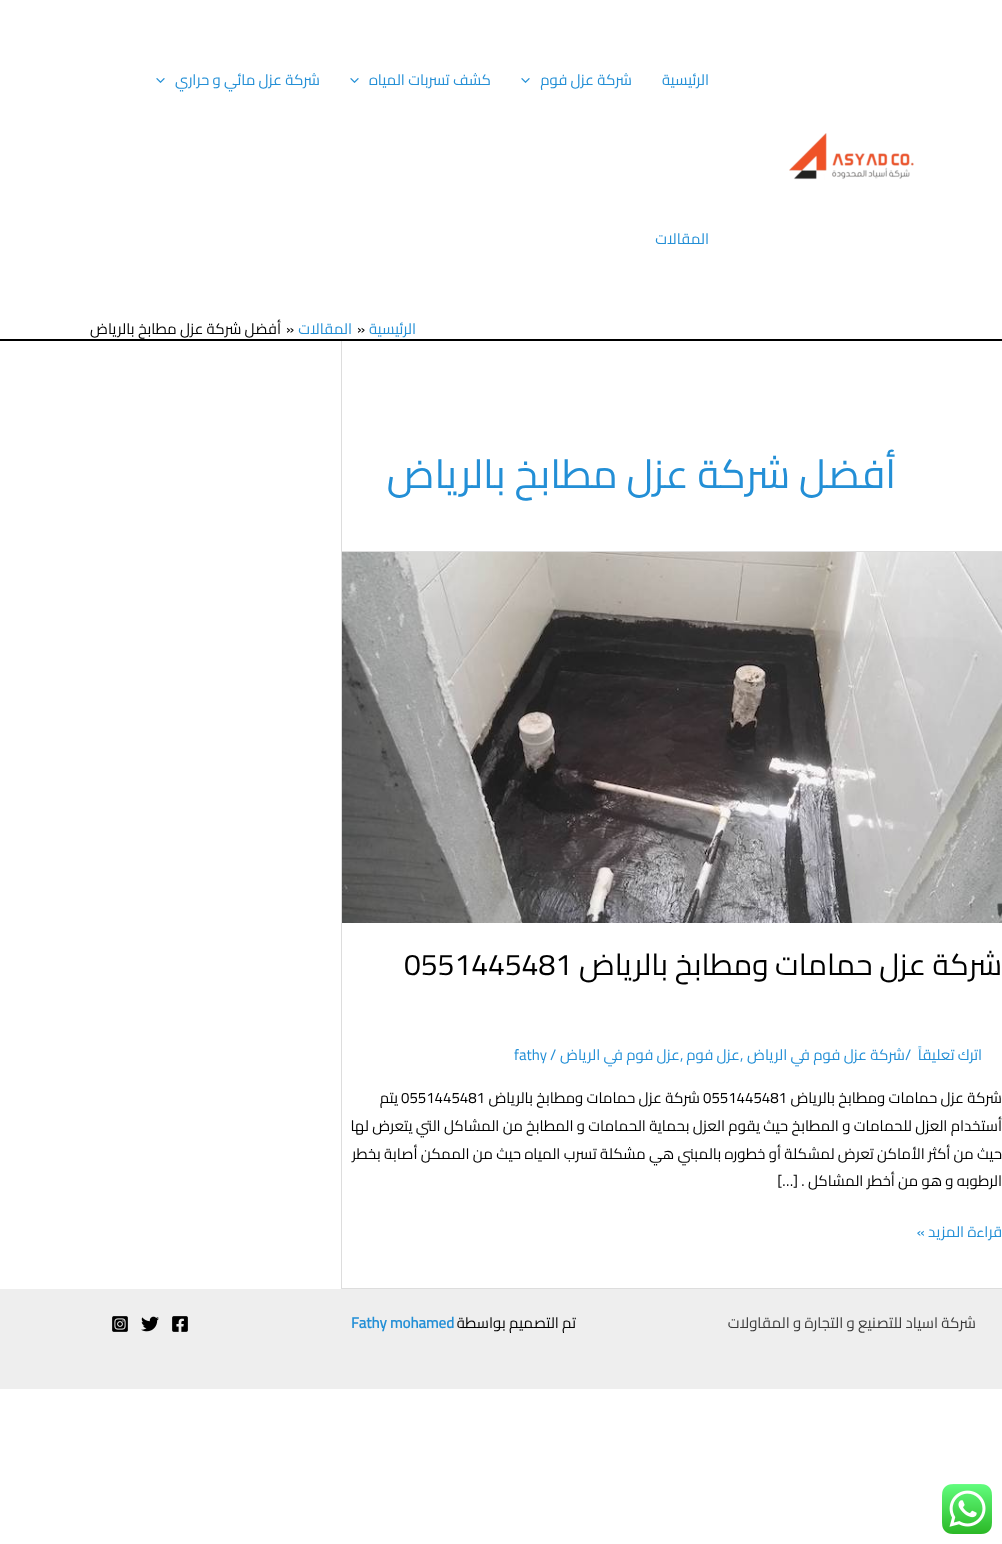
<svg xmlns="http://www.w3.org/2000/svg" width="1002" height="1544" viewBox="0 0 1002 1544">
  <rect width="100%" height="100%" fill="rgb(255,255,255)"/>
  <rect x="0" y="339" width="1002" height="2" fill="rgb(0,0,0)"/>
  <image x="789" y="133" width="125" height="47" href="pic1.png"/>
  <g font-family="Cairo" font-size="15" direction="rtl" fill="rgb(35,143,214)">
    <text x="709" y="85">الرئيسية</text>
    <text x="632" y="85">شركة عزل فوم</text>
  </g>
  <image x="521" y="78" width="9" height="5" href="pic2.png"/>
  <text x="491" y="85" font-family="Cairo" font-size="15" direction="rtl" fill="rgb(35,143,214)">كشف تسربات المياه</text>
  <image x="350" y="78" width="9" height="5" href="pic2.png"/>
  <text x="320" y="85" font-family="Cairo" font-size="15" direction="rtl" fill="rgb(35,143,214)">شركة عزل مائي و حراري</text>
  <image x="156" y="78" width="9" height="5" href="pic2.png"/>
  <g font-family="Cairo" font-size="15" direction="rtl" fill="rgb(35,143,214)">
    <text x="709" y="244">المقالات</text>
    <text x="416" y="334">الرئيسية</text>
  </g>
  <text x="357" y="334" font-family="Cairo" font-size="15" fill="rgb(0,0,0)">»</text>
  <text x="352" y="334" font-family="Cairo" font-size="15" direction="rtl" fill="rgb(35,143,214)">المقالات</text>
  <text x="286" y="334" font-family="Cairo" font-size="15" fill="rgb(0,0,0)">»</text>
  <text x="281" y="334" font-family="Cairo" font-size="15" direction="rtl" fill="rgb(0,0,0)">أفضل شركة عزل مطابخ بالرياض</text>
  <rect x="341" y="341" width="1" height="948" fill="rgb(221,221,221)"/>
  <rect x="342" y="551" width="660" height="1" fill="rgb(221,221,221)"/>
  <text x="896" y="488" font-family="Cairo" font-size="40" direction="rtl" fill="rgb(35,143,214)">أفضل شركة عزل مطابخ بالرياض</text>
  <rect x="342" y="1288" width="660" height="1" fill="rgb(221,221,221)"/>
  <image x="342" y="552" width="660" height="371" href="pic3.png"/>
  <text x="1002" y="975" font-family="Cairo" font-size="30" direction="rtl" fill="rgb(0,0,0)">شركة عزل حمامات ومطابخ بالرياض</text>
  <text x="404" y="975" font-family="Cairo" font-size="30" fill="rgb(0,0,0)">0551445481</text>
  <text x="982" y="1060" font-family="Cairo" font-size="15" direction="rtl" fill="rgb(35,143,214)">اترك تعليقاً</text>
  <text x="905" y="1060" font-family="Cairo" font-size="15" fill="rgb(35,143,214)">/</text>
  <text x="905" y="1060" font-family="Cairo" font-size="15" direction="rtl" fill="rgb(35,143,214)">شركة عزل فوم في الرياض</text>
  <text x="740" y="1060" font-family="Cairo" font-size="15" fill="rgb(35,143,214)">,</text>
  <text x="740" y="1060" font-family="Cairo" font-size="15" direction="rtl" fill="rgb(35,143,214)">عزل فوم</text>
  <text x="680" y="1060" font-family="Cairo" font-size="15" fill="rgb(35,143,214)">,</text>
  <text x="680" y="1060" font-family="Cairo" font-size="15" direction="rtl" fill="rgb(35,143,214)">عزل فوم في الرياض</text>
  <g font-family="Cairo" font-size="15" fill="rgb(35,143,214)">
    <text x="550" y="1060">/</text>
    <text x="514" y="1060">fathy</text>
  </g>
  <text x="1002" y="1103" font-family="Cairo" font-size="15" direction="rtl" fill="rgb(0,0,0)">شركة عزل حمامات ومطابخ بالرياض</text>
  <text x="703" y="1103" font-family="Cairo" font-size="15" fill="rgb(0,0,0)">0551445481</text>
  <text x="700" y="1103" font-family="Cairo" font-size="15" direction="rtl" fill="rgb(0,0,0)">شركة عزل حمامات ومطابخ بالرياض</text>
  <text x="401" y="1103" font-family="Cairo" font-size="15" fill="rgb(0,0,0)">0551445481</text>
  <g font-family="Cairo" font-size="15" direction="rtl" fill="rgb(0,0,0)">
    <text x="398" y="1103">يتم</text>
    <text>
      <tspan x="1002" y="1131">أستخدام العزل للحمامات و المطابخ حيث يقوم العزل بحماية الحمامات و المطابخ من المشاكل التي يتعرض لها</tspan>
      <tspan x="1002" y="1159">حيث من أكثر الأماكن تعرض لمشكلة أو خطوره بالمبني هي مشكلة تسرب المياه حيث من الممكن أصابة بخطر</tspan>
      <tspan x="1002" y="1186">الرطوبه و هو من أخطر المشاكل . […]</tspan>
    </text>
  </g>
  <text x="1002" y="1237" font-family="Cairo" font-size="15" direction="rtl" fill="rgb(35,143,214)">قراءة المزيد »</text>
  <rect x="0" y="1289" width="1002" height="100" fill="rgb(238,238,238)"/>
  <text x="976" y="1328" font-family="Cairo" font-size="15" direction="rtl" fill="rgb(58,58,58)">شركة اسياد للتصنيع و التجارة و المقاولات</text>
  <text x="576" y="1328" font-family="Cairo" font-size="15" direction="rtl" fill="rgb(0,0,0)">تم التصميم بواسطة</text>
  <text x="351" y="1328" font-family="Cairo" font-size="15" font-weight="bold" fill="rgb(35,143,214)">Fathy mohamed</text>
  <image x="172" y="1316" width="16" height="16" href="pic4.png"/>
  <image x="141" y="1316" width="18" height="16" href="pic5.png"/>
  <image x="112" y="1316" width="16" height="16" href="pic6.png"/>
  <image x="942" y="1484" width="50" height="50" href="pic7.png"/>
</svg>
